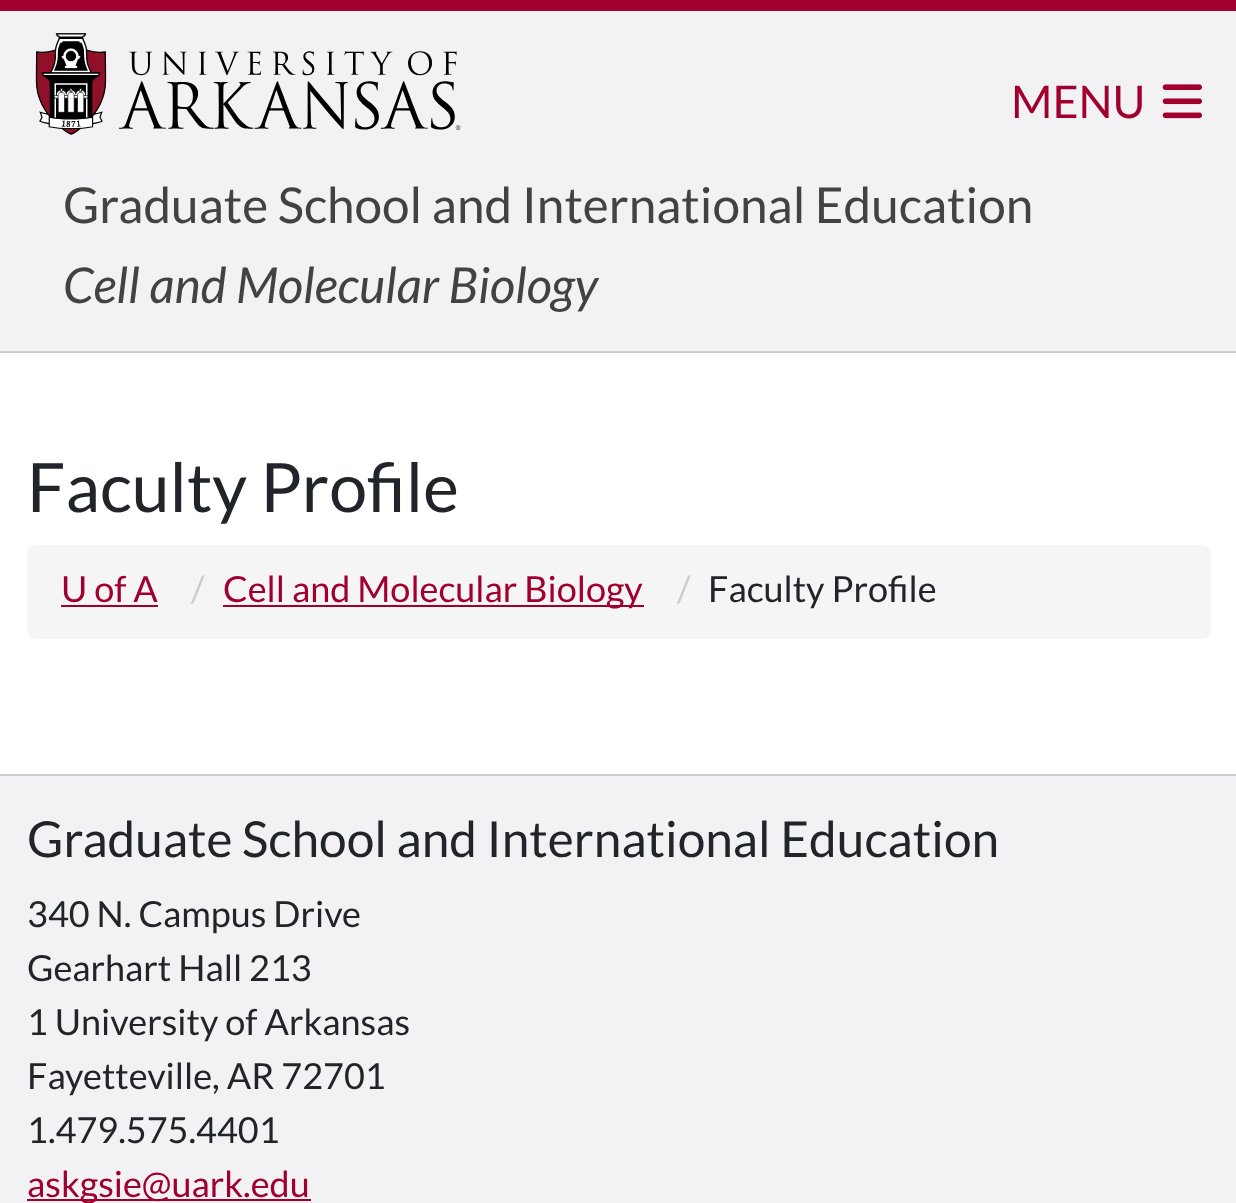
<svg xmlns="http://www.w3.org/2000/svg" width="1236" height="1203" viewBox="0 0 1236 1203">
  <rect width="100%" height="100%" fill="rgb(255,255,255)"/>
  <rect x="0" y="11" width="1236" height="340" fill="rgb(242,242,244)"/>
  <rect x="0" y="0" width="1236" height="11" fill="rgb(161,0,47)"/>
  <rect x="0" y="351" width="1236" height="2" fill="rgb(204,204,204)"/>
  <image x="35" y="33" width="426" height="102" href="pic1.png"/>
  <text x="1011" y="118" font-family="Lato" font-size="45" fill="rgb(161,0,47)">MENU</text>
  <image x="1162" y="84" width="40" height="35" href="pic2.png"/>
  <text x="63" y="223" font-family="Lato" font-size="49.5" fill="rgb(66,66,66)">Graduate School and International Education</text>
  <text x="63" y="303" font-family="Lato" font-size="49.5" font-style="italic" fill="rgb(66,66,66)">Cell and Molecular Biology</text>
  <text x="27" y="512" font-family="Lato" font-size="68" fill="rgb(33,37,41)">Faculty Profile</text>
  <rect x="27" y="545" width="1184" height="94" rx="9" fill="rgb(245,245,245)"/>
  <text x="61" y="602" font-family="Lato" font-size="36" fill="rgb(161,0,47)">U of A</text>
  <rect x="61" y="605" width="97" height="2" fill="rgb(161,0,47)"/>
  <text x="191" y="602" font-family="Lato" font-size="36" fill="rgb(204,204,204)">/</text>
  <rect x="223" y="605" width="421" height="2" fill="rgb(161,0,47)"/>
  <text x="223" y="602" font-family="Lato" font-size="36" fill="rgb(161,0,47)">Cell and Molecular Biology</text>
  <text x="677" y="602" font-family="Lato" font-size="36" fill="rgb(204,204,204)">/</text>
  <text x="708" y="602" font-family="Lato" font-size="36" fill="rgb(33,37,41)">Faculty Profile</text>
  <rect x="0" y="776" width="1236" height="427" fill="rgb(242,242,244)"/>
  <rect x="0" y="774" width="1236" height="2" fill="rgb(204,204,204)"/>
  <text x="27" y="857" font-family="Lato" font-size="49.6" fill="rgb(33,37,41)">Graduate School and International Education</text>
  <g font-family="Lato" font-size="36" fill="rgb(33,37,41)">
    <text>
      <tspan x="27" y="927">340 N. Campus Drive</tspan>
      <tspan x="27" y="981">Gearhart Hall 213</tspan>
      <tspan x="27" y="1035">1 University of Arkansas</tspan>
      <tspan x="27" y="1089">Fayetteville, AR 72701</tspan>
      <tspan x="27" y="1143">1.479.575.4401</tspan>
    </text>
  </g>
  <rect x="27" y="1199" width="284" height="2" fill="rgb(161,0,47)"/>
  <text x="27" y="1197" font-family="Lato" font-size="36" fill="rgb(161,0,47)">askgsie@uark.edu</text>
</svg>
